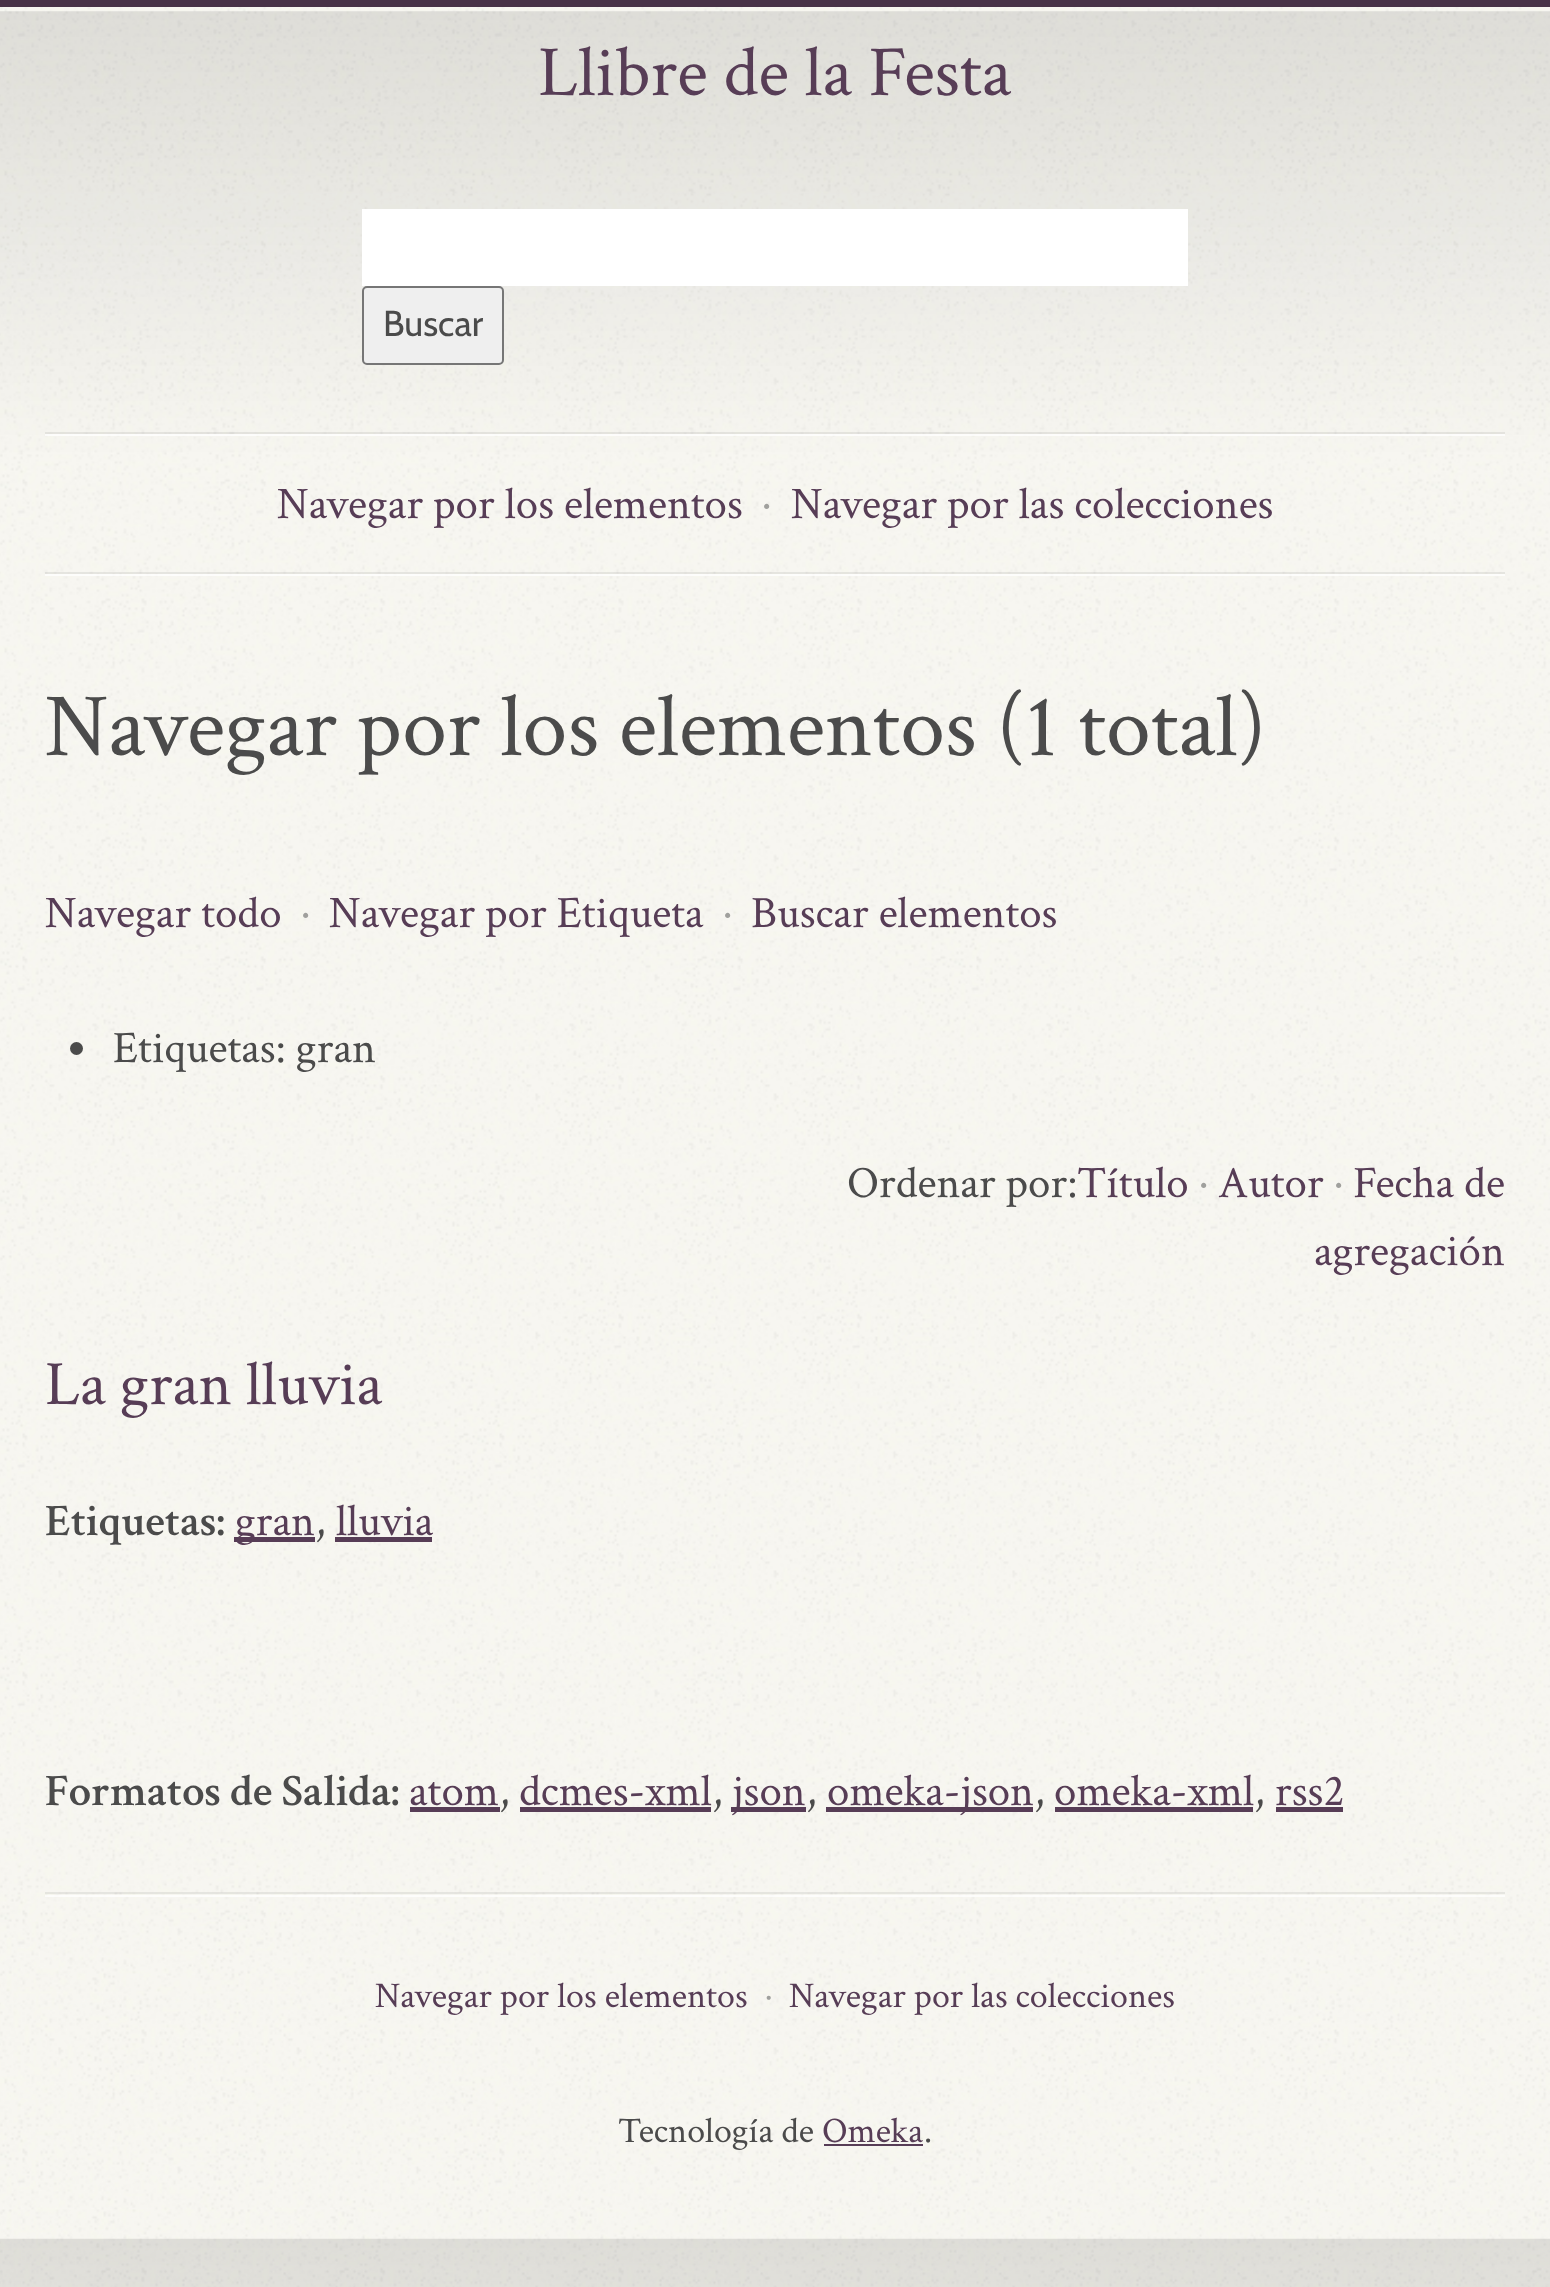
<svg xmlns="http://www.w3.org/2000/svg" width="1550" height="2287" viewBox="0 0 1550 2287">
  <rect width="100%" height="100%" fill="rgb(255,255,255)"/>
  <image x="0" y="7" width="1550" height="2280" href="pic1.png"/>
  <rect x="0" y="0" width="1550" height="7" fill="rgb(72,50,71)"/>
  <text x="538" y="95" font-family="Crimson Text" font-size="72" fill="rgb(87,61,86)">Llibre de la Festa</text>
  <rect x="362" y="209" width="826" height="77" fill="rgb(255,255,255)"/>
  <rect x="363" y="287" width="140" height="77" rx="4" fill="rgb(239,239,239)" stroke="rgb(118,118,118)" stroke-width="2"/>
  <text x="383" y="336" font-family="Cabin" font-size="36" fill="rgb(75,75,75)">Buscar</text>
  <rect x="45" y="432" width="1460" height="2" fill="rgba(75,75,75,0.1)"/>
  <rect x="45" y="434" width="1460" height="2" fill="rgba(255,255,255,0.75)"/>
  <text x="277" y="518" font-family="Crimson Text" font-size="45" fill="rgb(87,61,86)">Navegar por los elementos</text>
  <text x="762" y="518" font-family="Crimson Text" font-size="45" fill="rgb(160,160,157)">·</text>
  <text x="791" y="518" font-family="Crimson Text" font-size="45" fill="rgb(87,61,86)">Navegar por las colecciones</text>
  <rect x="45" y="572" width="1460" height="2" fill="rgba(75,75,75,0.1)"/>
  <rect x="45" y="574" width="1460" height="2" fill="rgba(255,255,255,0.75)"/>
  <text x="45" y="755" font-family="Crimson Text" font-size="90" fill="rgb(75,75,75)">Navegar por los elementos (1 total)</text>
  <text x="45" y="927" font-family="Crimson Text" font-size="45" fill="rgb(87,61,86)">Navegar todo</text>
  <text x="301" y="927" font-family="Crimson Text" font-size="45" fill="rgb(160,160,157)">·</text>
  <text x="329" y="927" font-family="Crimson Text" font-size="45" fill="rgb(87,61,86)">Navegar por Etiqueta</text>
  <text x="723" y="927" font-family="Crimson Text" font-size="45" fill="rgb(160,160,157)">·</text>
  <text x="751" y="927" font-family="Crimson Text" font-size="45" fill="rgb(87,61,86)">Buscar elementos</text>
  <circle cx="76.5" cy="1048.5" r="6.5" fill="rgb(75,75,75)"/>
  <g font-family="Crimson Text" font-size="45" fill="rgb(75,75,75)">
    <text x="113" y="1062">Etiquetas: gran</text>
    <text x="847" y="1197">Ordenar por:</text>
  </g>
  <text x="1077" y="1197" font-family="Crimson Text" font-size="45" fill="rgb(87,61,86)">Título</text>
  <text x="1199" y="1197" font-family="Crimson Text" font-size="45" fill="rgb(160,160,157)">·</text>
  <text x="1218" y="1197" font-family="Crimson Text" font-size="45" fill="rgb(87,61,86)">Autor</text>
  <text x="1334" y="1197" font-family="Crimson Text" font-size="45" fill="rgb(160,160,157)">·</text>
  <g font-family="Crimson Text" font-size="45" fill="rgb(87,61,86)">
    <text x="1353" y="1197">Fecha de</text>
    <text x="1314" y="1265">agregación</text>
  </g>
  <text x="45" y="1404" font-family="Crimson Text" font-size="63" fill="rgb(87,61,86)">La gran lluvia</text>
  <text x="45" y="1535" font-family="Crimson Text" font-size="45" font-weight="600" fill="rgb(75,75,75)">Etiquetas:</text>
  <rect x="234" y="1537" width="81" height="5" fill="rgb(87,61,86)"/>
  <text x="235" y="1535" font-family="Crimson Text" font-size="45" fill="rgb(87,61,86)">gran</text>
  <text x="315" y="1535" font-family="Crimson Text" font-size="45" fill="rgb(75,75,75)">,</text>
  <text x="336" y="1535" font-family="Crimson Text" font-size="45" fill="rgb(87,61,86)">lluvia</text>
  <rect x="335" y="1537" width="97" height="5" fill="rgb(87,61,86)"/>
  <text x="45" y="1805" font-family="Crimson Text" font-size="45" font-weight="600" fill="rgb(75,75,75)">Formatos de Salida:</text>
  <text x="409" y="1805" font-family="Crimson Text" font-size="45" fill="rgb(87,61,86)">atom</text>
  <text x="499" y="1805" font-family="Crimson Text" font-size="45" fill="rgb(75,75,75)">,</text>
  <rect x="410" y="1807" width="90" height="5" fill="rgb(87,61,86)"/>
  <text x="519" y="1805" font-family="Crimson Text" font-size="45" fill="rgb(87,61,86)">dcmes-xml</text>
  <text x="712" y="1805" font-family="Crimson Text" font-size="45" fill="rgb(75,75,75)">,</text>
  <rect x="520" y="1807" width="191" height="5" fill="rgb(87,61,86)"/>
  <rect x="731" y="1807" width="75" height="5" fill="rgb(87,61,86)"/>
  <text x="732" y="1805" font-family="Crimson Text" font-size="45" fill="rgb(87,61,86)">json</text>
  <text x="806" y="1805" font-family="Crimson Text" font-size="45" fill="rgb(75,75,75)">,</text>
  <rect x="826" y="1807" width="207" height="5" fill="rgb(87,61,86)"/>
  <text x="827" y="1805" font-family="Crimson Text" font-size="45" fill="rgb(87,61,86)">omeka-json</text>
  <text x="1034" y="1805" font-family="Crimson Text" font-size="45" fill="rgb(75,75,75)">,</text>
  <text x="1054" y="1805" font-family="Crimson Text" font-size="45" fill="rgb(87,61,86)">omeka-xml</text>
  <text x="1254" y="1805" font-family="Crimson Text" font-size="45" fill="rgb(75,75,75)">,</text>
  <rect x="1055" y="1807" width="198" height="5" fill="rgb(87,61,86)"/>
  <rect x="1276" y="1807" width="67" height="5" fill="rgb(87,61,86)"/>
  <text x="1275" y="1805" font-family="Crimson Text" font-size="45" fill="rgb(87,61,86)">rss2</text>
  <rect x="45" y="1892" width="1460" height="2" fill="rgba(75,75,75,0.1)"/>
  <rect x="45" y="1895" width="1460" height="2" fill="rgba(255,255,255,0.75)"/>
  <text x="375" y="2007" font-family="Crimson Text" font-size="36" fill="rgb(87,61,86)">Navegar por los elementos</text>
  <text x="765" y="2007" font-family="Crimson Text" font-size="36" fill="rgb(160,160,157)">·</text>
  <text x="789" y="2007" font-family="Crimson Text" font-size="36" fill="rgb(87,61,86)">Navegar por las colecciones</text>
  <text x="618" y="2142" font-family="Crimson Text" font-size="36" fill="rgb(75,75,75)">Tecnología de</text>
  <text x="822" y="2142" font-family="Crimson Text" font-size="36" fill="rgb(87,61,86)">Omeka</text>
  <rect x="824" y="2144" width="99" height="2" fill="rgb(87,61,86)"/>
  <text x="924" y="2142" font-family="Crimson Text" font-size="36" fill="rgb(75,75,75)">.</text>
</svg>
